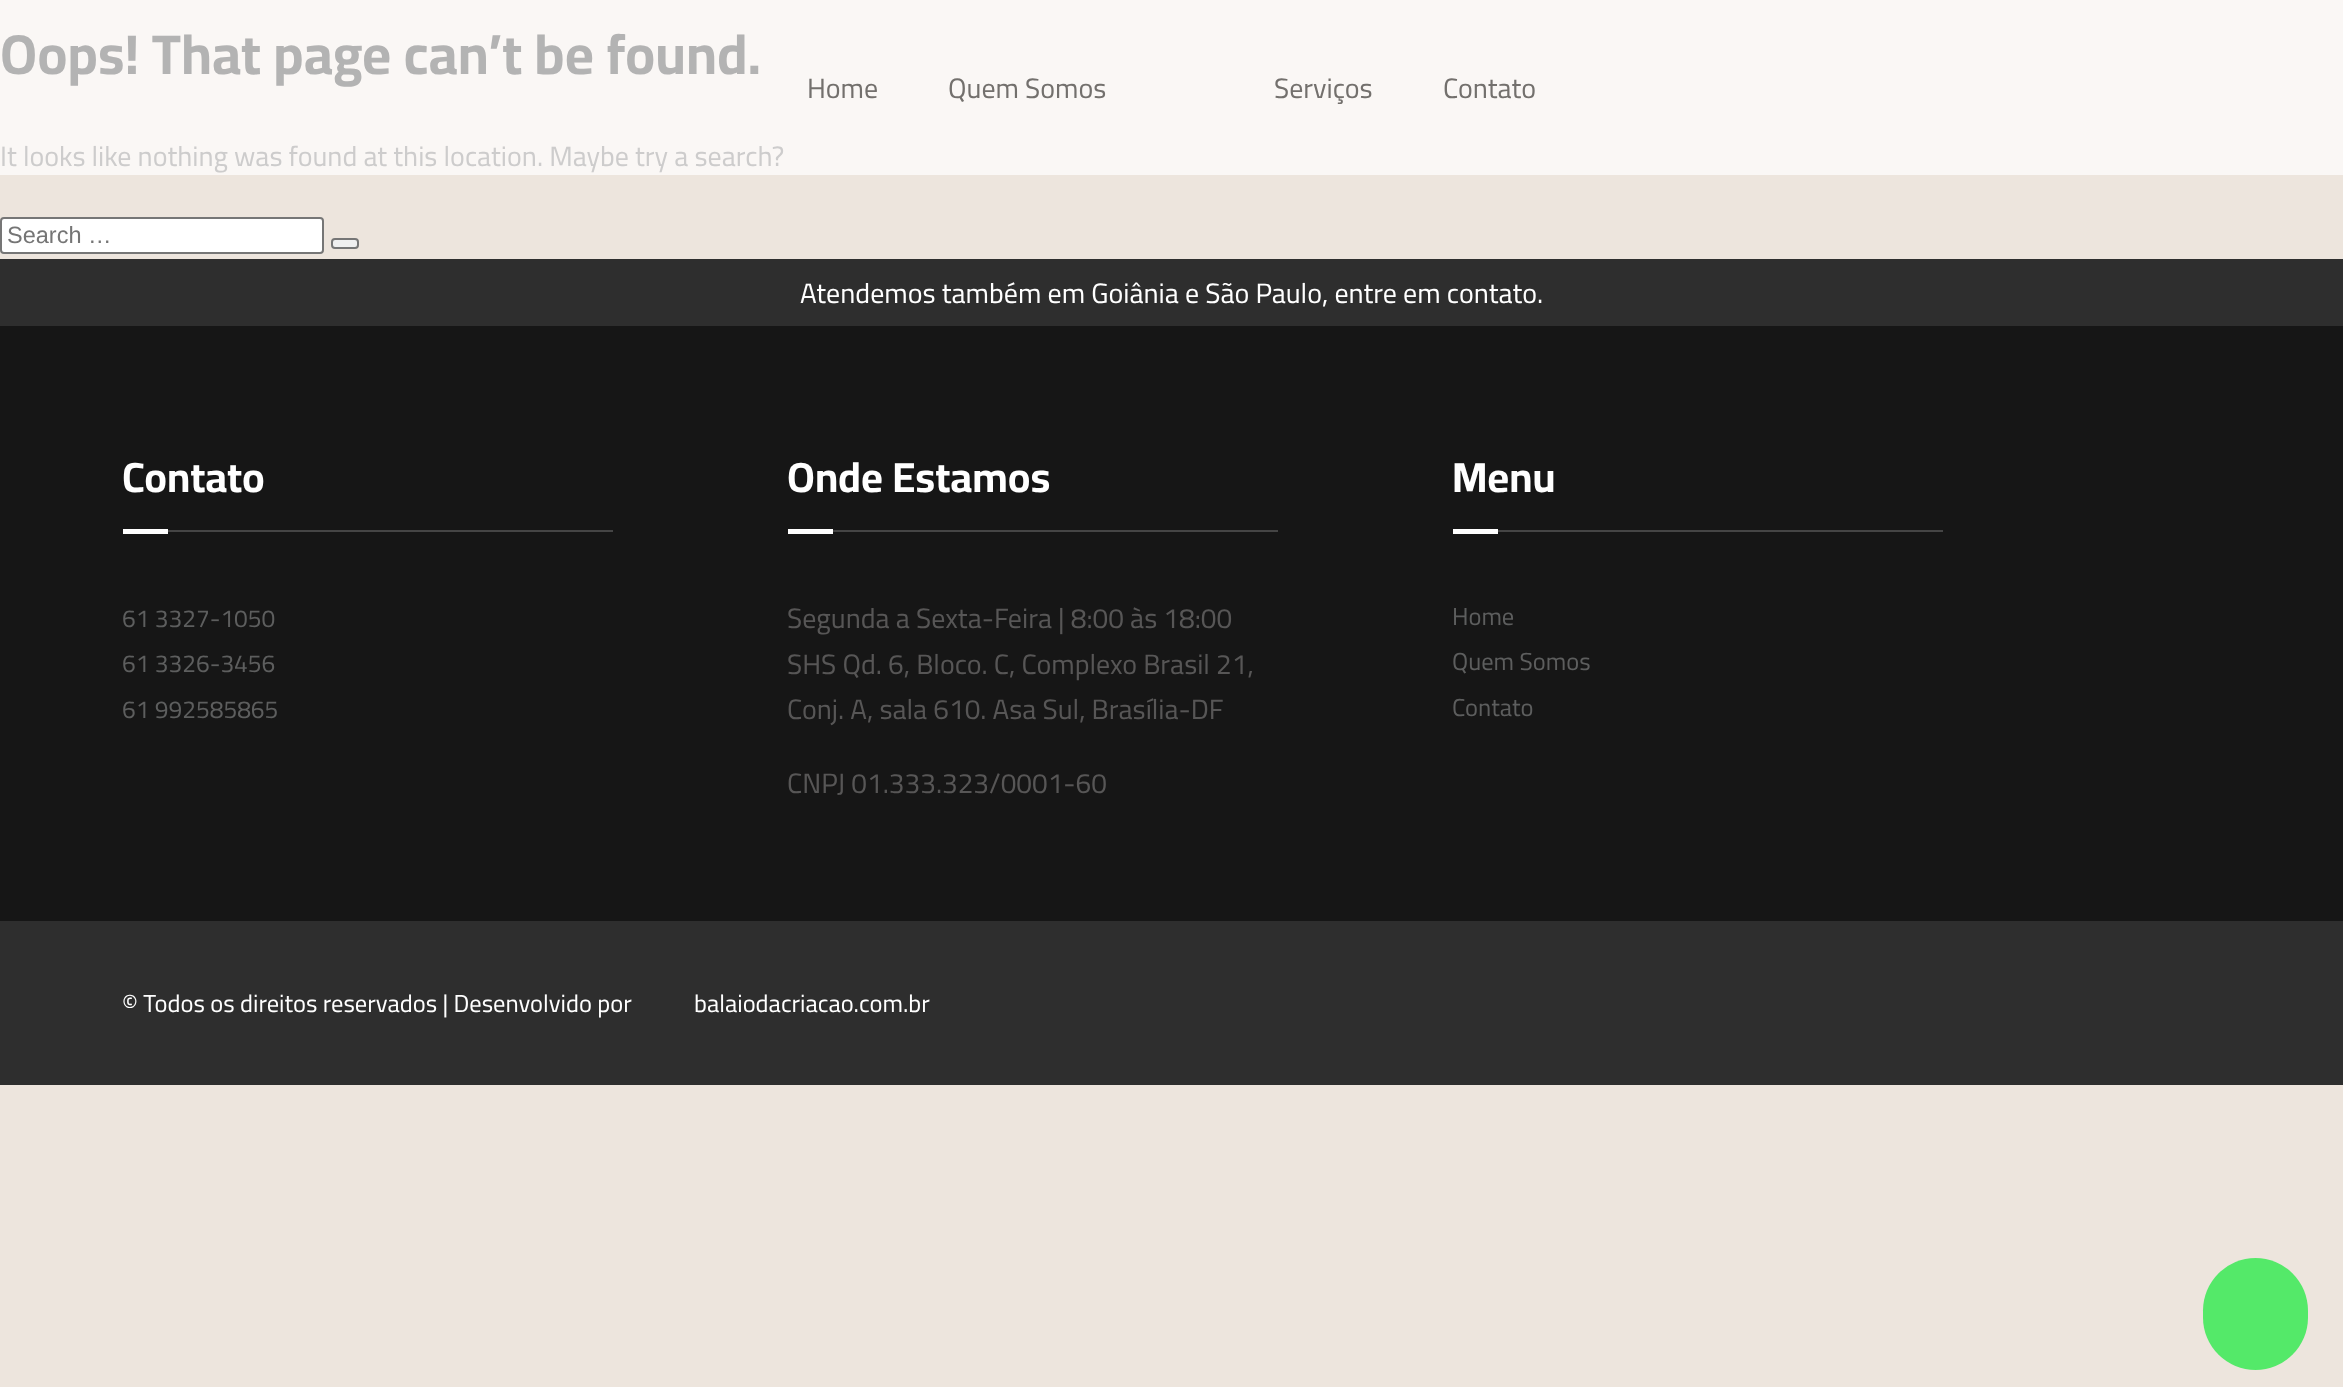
<svg xmlns="http://www.w3.org/2000/svg" width="2343" height="1387" viewBox="0 0 2343 1387">
  <rect width="100%" height="100%" fill="rgb(237,229,221)"/>
  <rect x="0" y="0" width="2343" height="175" fill="rgb(250,247,245)"/>
  <text x="0" y="74" font-family="Cairo" font-size="56" font-weight="bold" fill="rgb(179,179,179)">Oops! That page can’t be found.</text>
  <text x="0" y="166" font-family="Cairo" font-size="28" fill="rgb(205,204,204)">It looks like nothing was found at this location. Maybe try a search?</text>
  <rect x="1" y="218" width="322" height="35" rx="3" fill="rgb(255,255,255)" stroke="rgb(118,118,118)" stroke-width="2"/>
  <text x="7" y="243" font-family="Liberation Sans" font-size="23.5" fill="rgb(117,117,117)">Search …</text>
  <rect x="332" y="239" width="26" height="9" rx="3" fill="rgb(239,239,239)" stroke="rgb(118,118,118)" stroke-width="2"/>
  <g font-family="Cairo" font-size="28" fill="rgb(115,112,109)">
    <text x="807" y="98">Home</text>
    <text x="948" y="98">Quem Somos</text>
    <text x="1274" y="98">Serviços</text>
    <text x="1443" y="98">Contato</text>
  </g>
  <rect x="0" y="326" width="2343" height="595" fill="rgb(22,22,22)"/>
  <rect x="0" y="259" width="2343" height="67" fill="rgb(46,46,46)"/>
  <text x="800" y="303" font-family="Cairo" font-size="28" fill="rgb(255,255,255)">Atendemos também em Goiânia e São Paulo, entre em contato.</text>
  <rect x="168" y="530" width="445" height="2" fill="rgb(69,69,69)"/>
  <text x="122" y="492" font-family="Cairo" font-size="42" font-weight="bold" fill="rgb(255,255,255)">Contato</text>
  <rect x="123" y="529" width="45" height="5" fill="rgb(255,255,255)"/>
  <g font-family="Cairo" font-size="24.5" fill="rgb(93,94,94)">
    <text>
      <tspan x="122" y="627">61 3327-1050</tspan>
      <tspan x="122" y="672">61 3326-3456</tspan>
      <tspan x="122" y="718">61 992585865</tspan>
    </text>
  </g>
  <rect x="833" y="530" width="445" height="2" fill="rgb(69,69,69)"/>
  <text x="787" y="492" font-family="Cairo" font-size="42" font-weight="bold" fill="rgb(255,255,255)">Onde Estamos</text>
  <rect x="788" y="529" width="45" height="5" fill="rgb(255,255,255)"/>
  <g font-family="Cairo" font-size="28" fill="rgb(87,86,86)">
    <text>
      <tspan x="787" y="628">Segunda a Sexta-Feira | 8:00 às 18:00</tspan>
      <tspan x="787" y="674">SHS Qd. 6, Bloco. C, Complexo Brasil 21,</tspan>
      <tspan x="787" y="719">Conj. A, sala 610. Asa Sul, Brasília-DF</tspan>
    </text>
    <text x="787" y="793">CNPJ 01.333.323/0001-60</text>
  </g>
  <rect x="1498" y="530" width="445" height="2" fill="rgb(69,69,69)"/>
  <text x="1452" y="492" font-family="Cairo" font-size="42" font-weight="bold" fill="rgb(255,255,255)">Menu</text>
  <rect x="1453" y="529" width="45" height="5" fill="rgb(255,255,255)"/>
  <g font-family="Cairo" font-size="24.5" fill="rgb(93,94,94)">
    <text>
      <tspan x="1452" y="625">Home</tspan>
      <tspan x="1452" y="670">Quem Somos</tspan>
      <tspan x="1452" y="716">Contato</tspan>
    </text>
  </g>
  <rect x="0" y="921" width="2343" height="164" fill="rgb(46,46,46)"/>
  <g font-family="Cairo" font-size="24.5" fill="rgb(255,255,255)">
    <text x="122" y="1012">© Todos os direitos reservados | Desenvolvido por</text>
    <text x="694" y="1012">balaiodacriacao.com.br</text>
  </g>
  <rect x="2203" y="1258" width="105" height="112" rx="52.5" fill="rgb(84,233,105)"/>
</svg>
